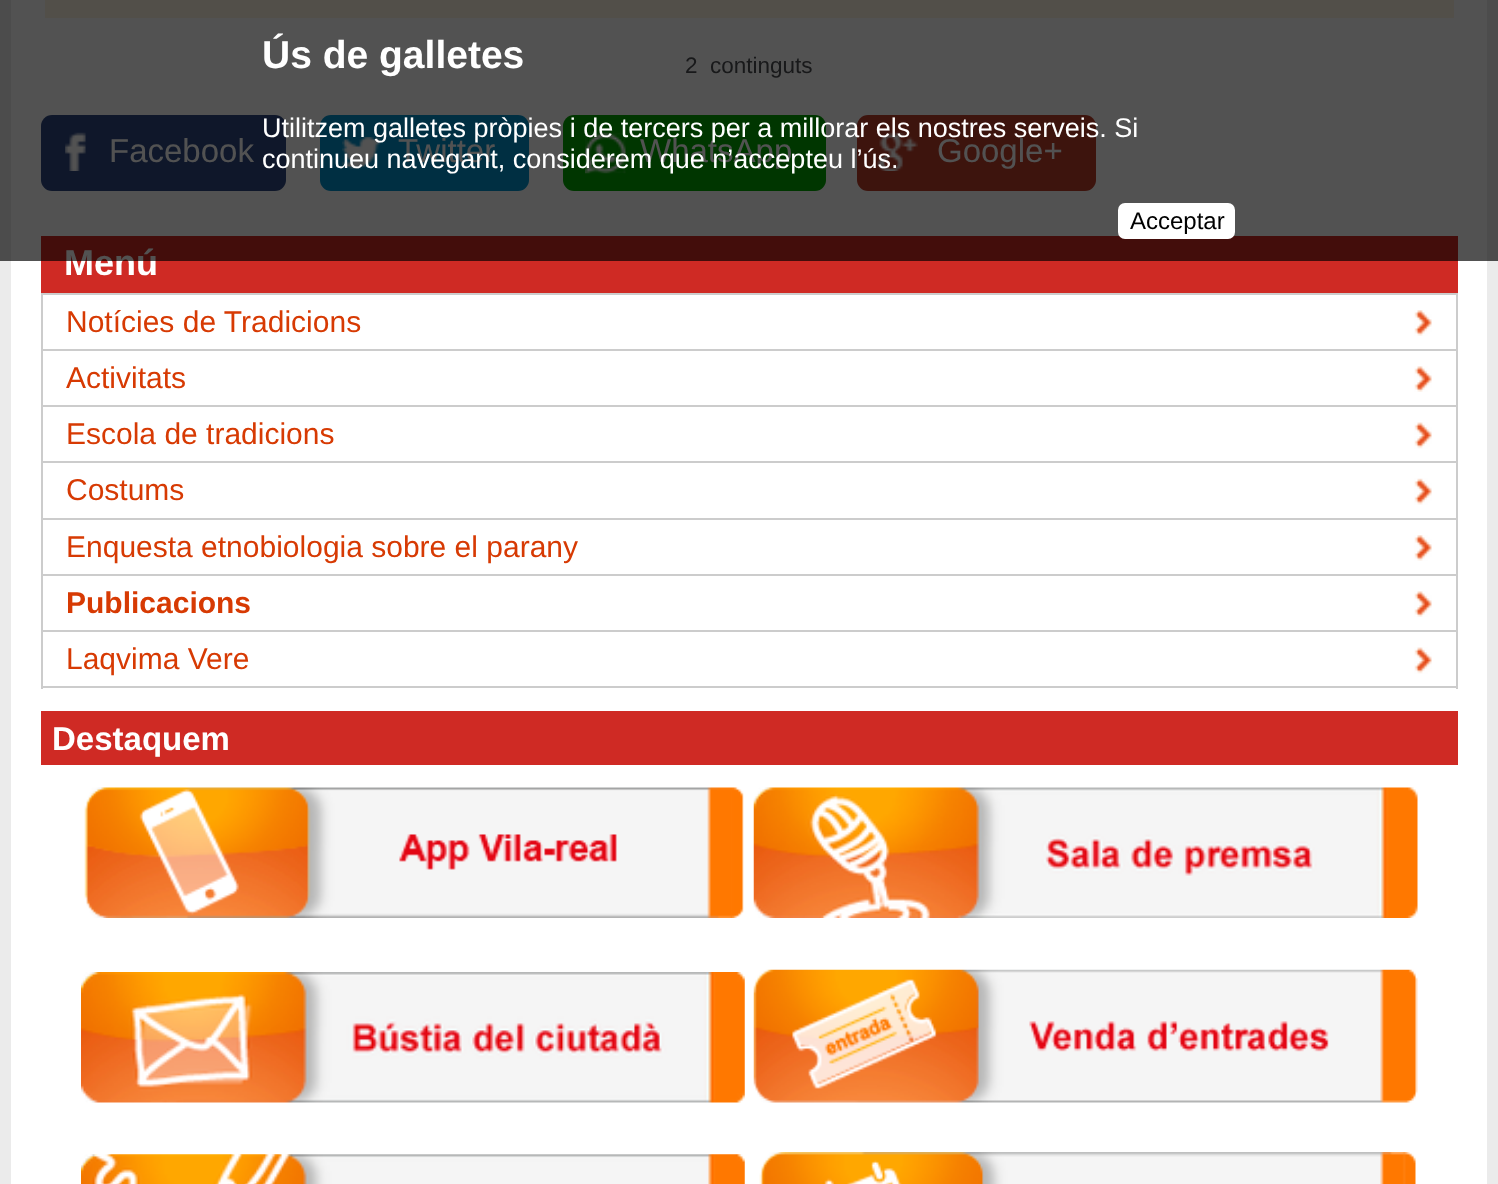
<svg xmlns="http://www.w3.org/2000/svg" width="1498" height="1184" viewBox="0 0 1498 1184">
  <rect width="100%" height="100%" fill="rgb(235,235,235)"/>
  <rect x="11" y="0" width="1476" height="1184" fill="rgb(255,255,255)"/>
  <rect x="45" y="0" width="1409" height="18" fill="rgb(255,246,226)"/>
  <text x="685" y="73" font-family="Liberation Sans" font-size="22.5" fill="rgb(77,78,83)" xml:space="preserve">2  continguts</text>
  <rect x="41" y="115" width="245" height="76" rx="11" fill="rgb(49,74,131)"/>
  <image x="65" y="132" width="21" height="39" href="pic1.png"/>
  <text x="109" y="162" font-family="Liberation Sans" font-size="33" fill="rgb(255,255,255)">Facebook</text>
  <rect x="320" y="115" width="209" height="76" rx="11" fill="rgb(0,146,204)"/>
  <image x="342" y="137" width="39" height="32" href="pic2.png"/>
  <text x="398" y="162" font-family="Liberation Sans" font-size="33" fill="rgb(255,255,255)">Twitter</text>
  <rect x="563" y="115" width="263" height="76" rx="11" fill="rgb(0,167,0)"/>
  <image x="585" y="132" width="41" height="42" href="pic3.png"/>
  <text x="640" y="162" font-family="Liberation Sans" font-size="33" fill="rgb(255,255,255)">WhatsApp</text>
  <rect x="857" y="115" width="239" height="76" rx="11" fill="rgb(190,63,43)"/>
  <image x="877" y="132" width="41" height="39" href="pic4.png"/>
  <text x="937" y="162" font-family="Liberation Sans" font-size="33" fill="rgb(255,255,255)">Google+</text>
  <rect x="41" y="236" width="1417" height="57" fill="rgb(207,42,36)"/>
  <text x="64" y="275" font-family="Liberation Sans" font-size="36" font-weight="bold" fill="rgb(255,255,255)">Menú</text>
  <rect x="0" y="0" width="1498" height="261" fill="rgba(0,0,0,0.68)"/>
  <text x="262" y="68" font-family="Liberation Sans" font-size="39" font-weight="bold" fill="rgb(255,255,255)">Ús de galletes</text>
  <g font-family="Liberation Sans" font-size="27" fill="rgb(255,255,255)">
    <text>
      <tspan x="262" y="137">Utilitzem galletes pròpies i de tercers per a millorar els nostres serveis. Si</tspan>
      <tspan x="262" y="168">continueu navegant, considerem que n’accepteu l’ús.</tspan>
    </text>
  </g>
  <rect x="1118" y="203" width="117" height="36" rx="7" fill="rgb(255,255,255)"/>
  <text x="1130" y="229" font-family="Liberation Sans" font-size="24" fill="rgb(0,0,0)">Acceptar</text>
  <rect x="41" y="293" width="1417" height="2" fill="rgb(204,204,204)"/>
  <rect x="41" y="293" width="2" height="396" fill="rgb(204,204,204)"/>
  <rect x="1456" y="295" width="2" height="394" fill="rgb(204,204,204)"/>
  <rect x="43" y="349" width="1415" height="2" fill="rgb(204,204,204)"/>
  <image x="1414" y="310" width="18" height="26" href="pic5.png"/>
  <text x="66" y="332" font-family="Liberation Sans" font-size="30" fill="rgb(215,58,3)">Notícies de Tradicions</text>
  <rect x="43" y="405" width="1415" height="2" fill="rgb(204,204,204)"/>
  <image x="1414" y="366" width="18" height="26" href="pic6.png"/>
  <text x="66" y="388" font-family="Liberation Sans" font-size="30" fill="rgb(215,58,3)">Activitats</text>
  <rect x="43" y="461" width="1415" height="2" fill="rgb(204,204,204)"/>
  <image x="1414" y="422" width="18" height="27" href="pic7.png"/>
  <text x="66" y="444" font-family="Liberation Sans" font-size="30" fill="rgb(215,58,3)">Escola de tradicions</text>
  <rect x="43" y="518" width="1415" height="2" fill="rgb(204,204,204)"/>
  <image x="1414" y="478" width="18" height="27" href="pic8.png"/>
  <text x="66" y="500" font-family="Liberation Sans" font-size="30" fill="rgb(215,58,3)">Costums</text>
  <rect x="43" y="574" width="1415" height="2" fill="rgb(204,204,204)"/>
  <image x="1414" y="535" width="18" height="26" href="pic5.png"/>
  <text x="66" y="557" font-family="Liberation Sans" font-size="30" fill="rgb(215,58,3)">Enquesta etnobiologia sobre el parany</text>
  <rect x="43" y="630" width="1415" height="2" fill="rgb(204,204,204)"/>
  <image x="1414" y="591" width="18" height="26" href="pic9.png"/>
  <text x="66" y="613" font-family="Liberation Sans" font-size="30" font-weight="bold" fill="rgb(215,58,3)">Publicacions</text>
  <rect x="43" y="686" width="1415" height="2" fill="rgb(204,204,204)"/>
  <image x="1414" y="647" width="18" height="27" href="pic7.png"/>
  <text x="66" y="669" font-family="Liberation Sans" font-size="30" fill="rgb(215,58,3)">Laqvima Vere</text>
  <rect x="41" y="711" width="1417" height="54" fill="rgb(207,42,36)"/>
  <text x="52" y="750" font-family="Liberation Sans" font-size="33" font-weight="bold" fill="rgb(255,255,255)">Destaquem</text>
  <image x="84" y="787" width="660" height="131" href="pic10.png"/>
  <image x="753" y="787" width="665" height="131" href="pic11.png"/>
  <image x="81" y="972" width="664" height="131" href="pic12.png"/>
  <image x="753" y="969" width="665" height="134" href="pic13.png"/>
  <image x="81" y="1154" width="664" height="30" href="pic14.png"/>
  <image x="759" y="1152" width="657" height="32" href="pic15.png"/>
</svg>
